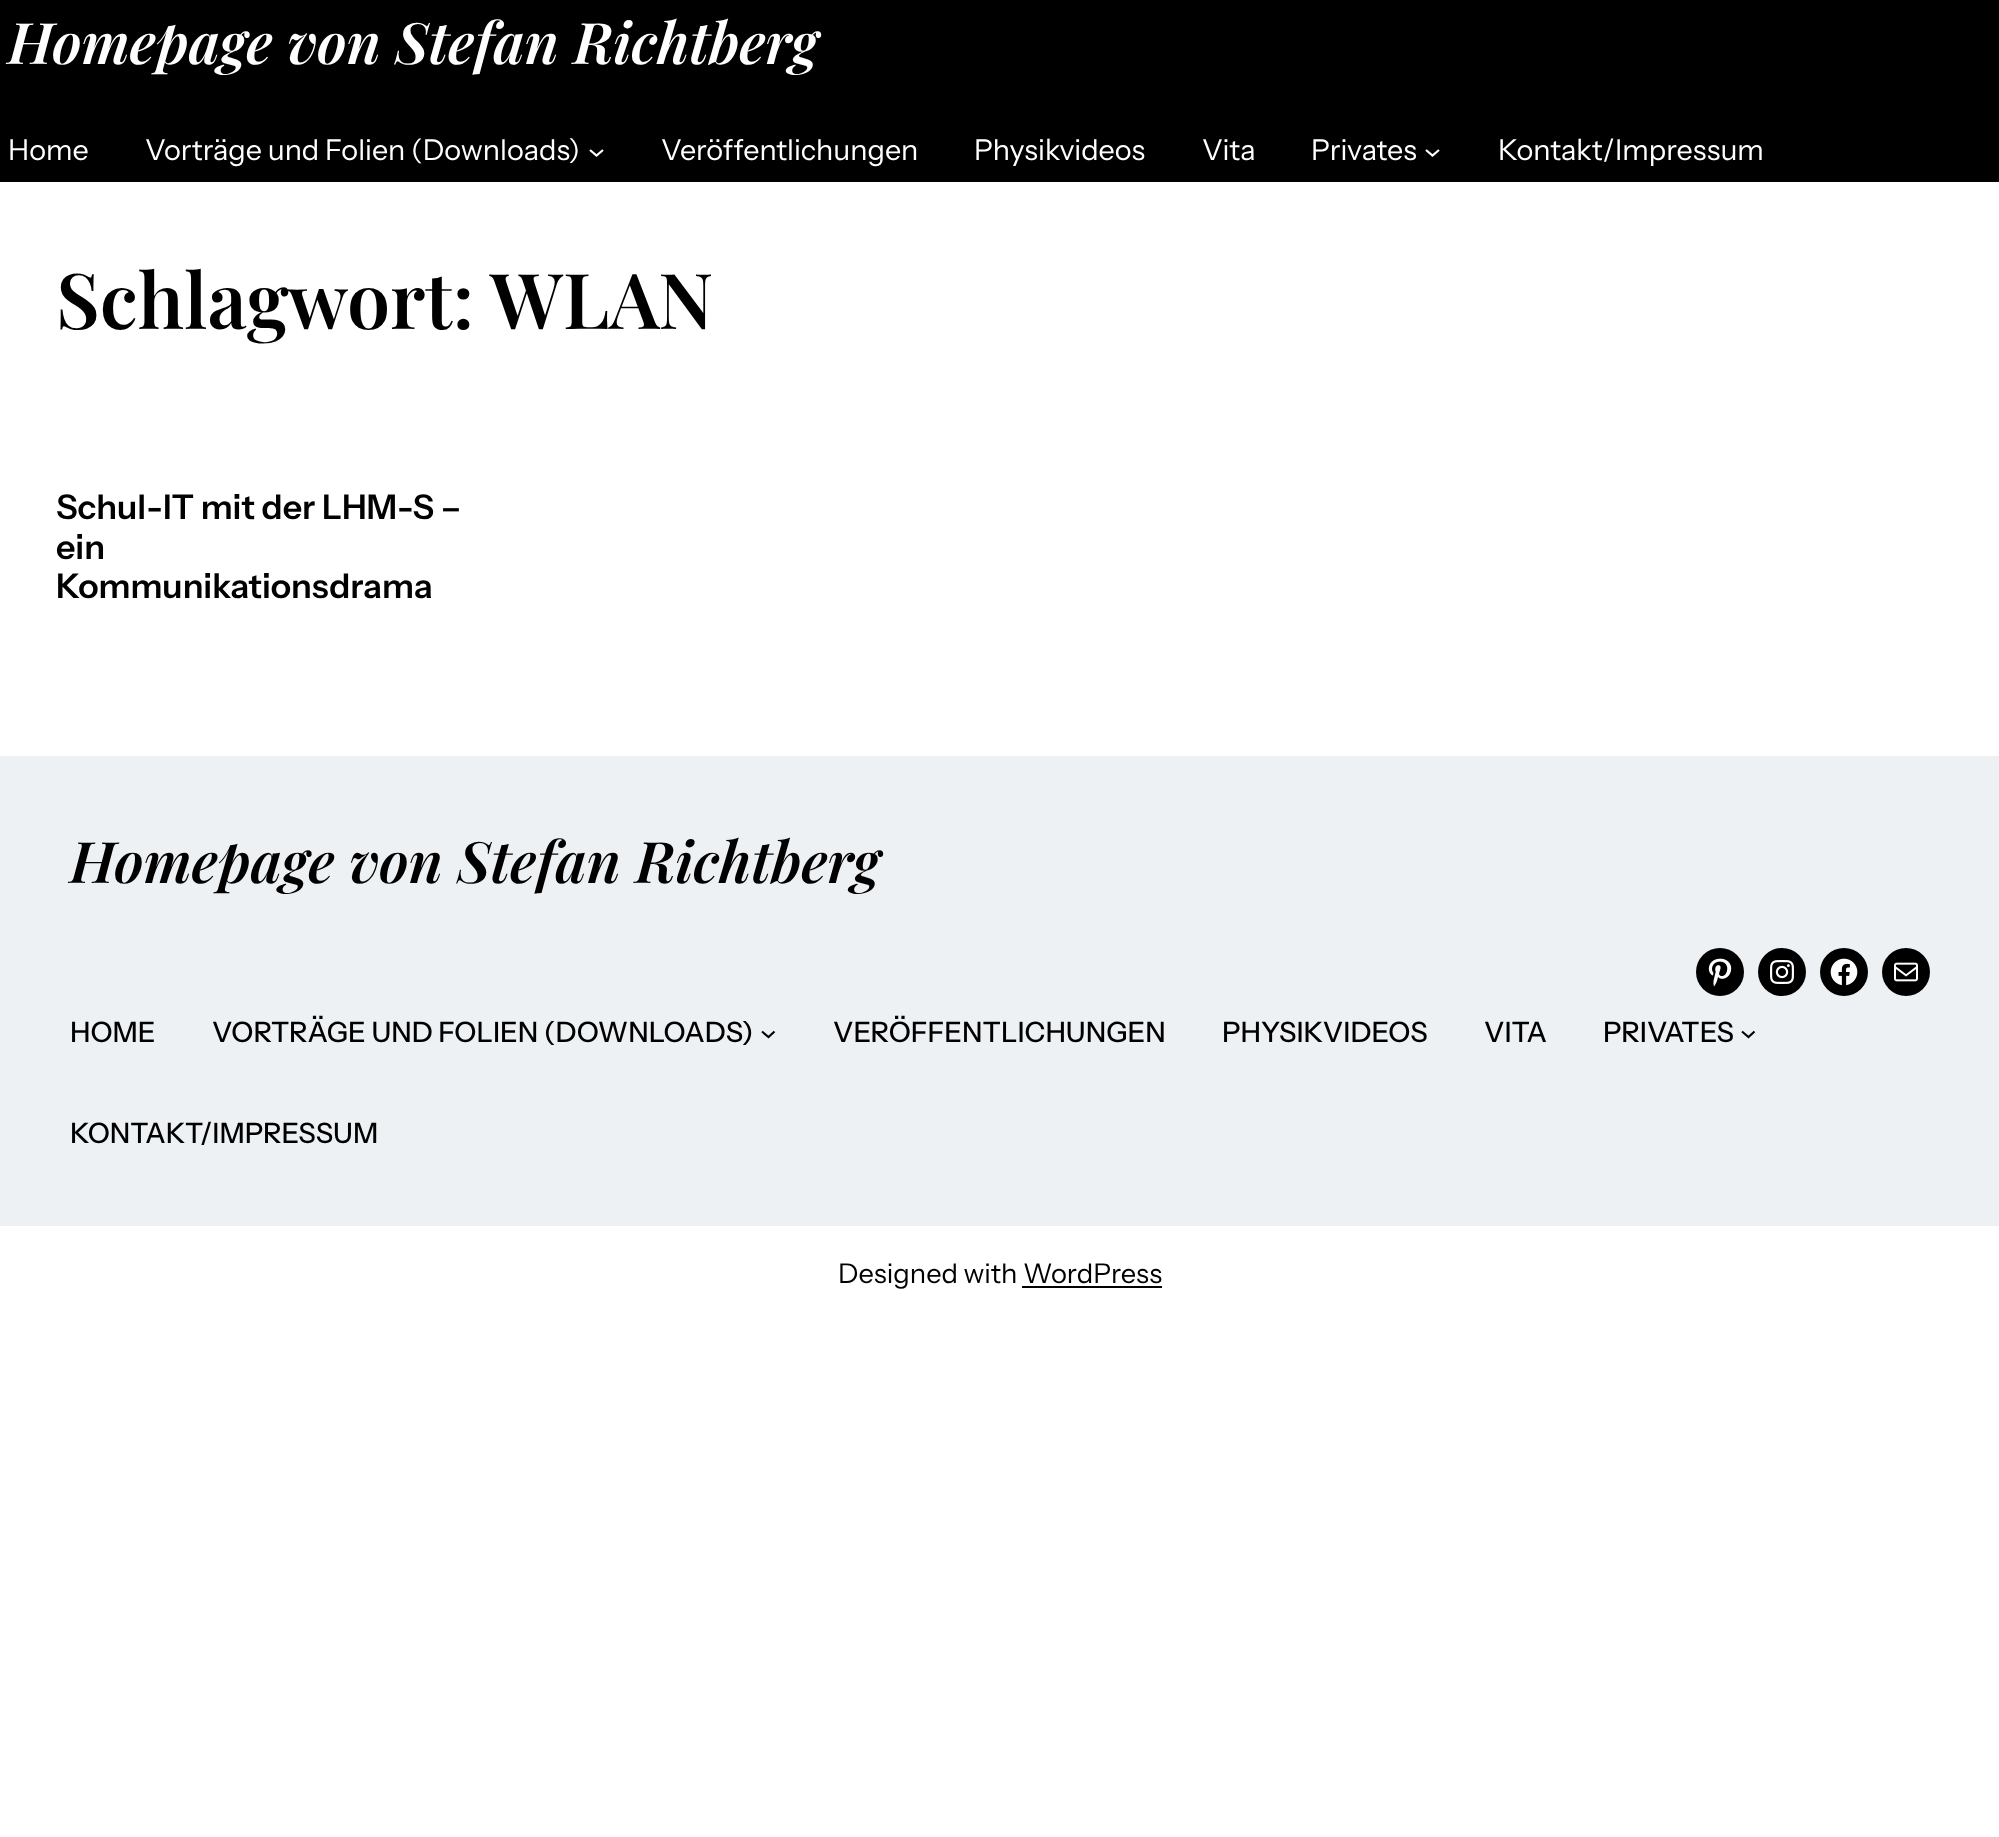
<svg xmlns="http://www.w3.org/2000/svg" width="1999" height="1837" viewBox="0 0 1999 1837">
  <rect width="100%" height="100%" fill="rgb(255,255,255)"/>
  <rect x="0" y="0" width="1999" height="182" fill="rgb(0,0,0)"/>
  <text x="8" y="64" font-family="Playfair Display" font-size="57.2" font-weight="600" font-style="italic" fill="rgb(255,255,255)">Homepage von Stefan Richtberg</text>
  <g font-family="Instrument Sans" font-size="28.75" fill="rgb(255,255,255)">
    <text x="8" y="160">Home</text>
    <text x="145" y="160">Vorträge und Folien (Downloads)</text>
  </g>
  <path d="M590 150L596.5 155.5L603 150" fill="none" stroke="rgb(255,255,255)" stroke-width="2.2"/>
  <g font-family="Instrument Sans" font-size="28.75" fill="rgb(255,255,255)">
    <text x="661" y="160">Veröffentlichungen</text>
    <text x="974" y="160">Physikvideos</text>
    <text x="1202" y="160">Vita</text>
    <text x="1311" y="160">Privates</text>
  </g>
  <path d="M1426 150L1432.5 155.5L1439 150" fill="none" stroke="rgb(255,255,255)" stroke-width="2.2"/>
  <text x="1498" y="160" font-family="Instrument Sans" font-size="28.75" fill="rgb(255,255,255)">Kontakt/Impressum</text>
  <g font-family="Playfair Display" font-size="77" font-weight="600" fill="rgb(0,0,0)">
    <text x="56" y="329">Schlagwort:</text>
    <text x="490" y="329">WLAN</text>
  </g>
  <g font-family="Instrument Sans" font-size="34" font-weight="600" fill="rgb(0,0,0)">
    <text>
      <tspan x="56" y="519">Schul-IT mit der LHM-S –</tspan>
      <tspan x="56" y="559">ein</tspan>
      <tspan x="56" y="598">Kommunikationsdrama</tspan>
    </text>
  </g>
  <rect x="0" y="756" width="1999" height="470" fill="rgb(237,241,244)"/>
  <text x="70" y="883" font-family="Playfair Display" font-size="57.2" font-weight="600" font-style="italic" fill="rgb(0,0,0)">Homepage von Stefan Richtberg</text>
  <circle cx="1720" cy="972" r="24" fill="rgb(0,0,0)"/>
  <image x="1708" y="958" width="24" height="29" href="pic1.png"/>
  <circle cx="1782" cy="972" r="24" fill="rgb(0,0,0)"/>
  <image x="1770" y="960" width="24" height="24" href="pic2.png"/>
  <circle cx="1844" cy="972" r="24" fill="rgb(0,0,0)"/>
  <image x="1830" y="958" width="28" height="28" href="pic3.png"/>
  <circle cx="1906" cy="972" r="24" fill="rgb(0,0,0)"/>
  <image x="1894" y="962" width="24" height="20" href="pic4.png"/>
  <g font-family="Instrument Sans" font-size="28" font-weight="500" fill="rgb(0,0,0)">
    <text x="70" y="1042">HOME</text>
    <text x="212" y="1042">VORTRÄGE UND FOLIEN (DOWNLOADS)</text>
  </g>
  <path d="M762 1031.5L768.5 1037L774.5 1031.5" fill="none" stroke="rgb(0,0,0)" stroke-width="2.1"/>
  <g font-family="Instrument Sans" font-size="28" font-weight="500" fill="rgb(0,0,0)">
    <text x="833" y="1042">VERÖFFENTLICHUNGEN</text>
    <text x="1222" y="1042">PHYSIKVIDEOS</text>
    <text x="1484" y="1042">VITA</text>
    <text x="1603" y="1042">PRIVATES</text>
  </g>
  <path d="M1742 1031.5L1748.5 1037L1754.5 1031.5" fill="none" stroke="rgb(0,0,0)" stroke-width="2.1"/>
  <text x="70" y="1143" font-family="Instrument Sans" font-size="28" font-weight="500" fill="rgb(0,0,0)">KONTAKT/IMPRESSUM</text>
  <text x="838" y="1283" font-family="Instrument Sans" font-size="27.25" fill="rgb(0,0,0)">Designed with WordPress</text>
  <rect x="1022" y="1286" width="140" height="2" fill="rgb(0,0,0)"/>
</svg>
